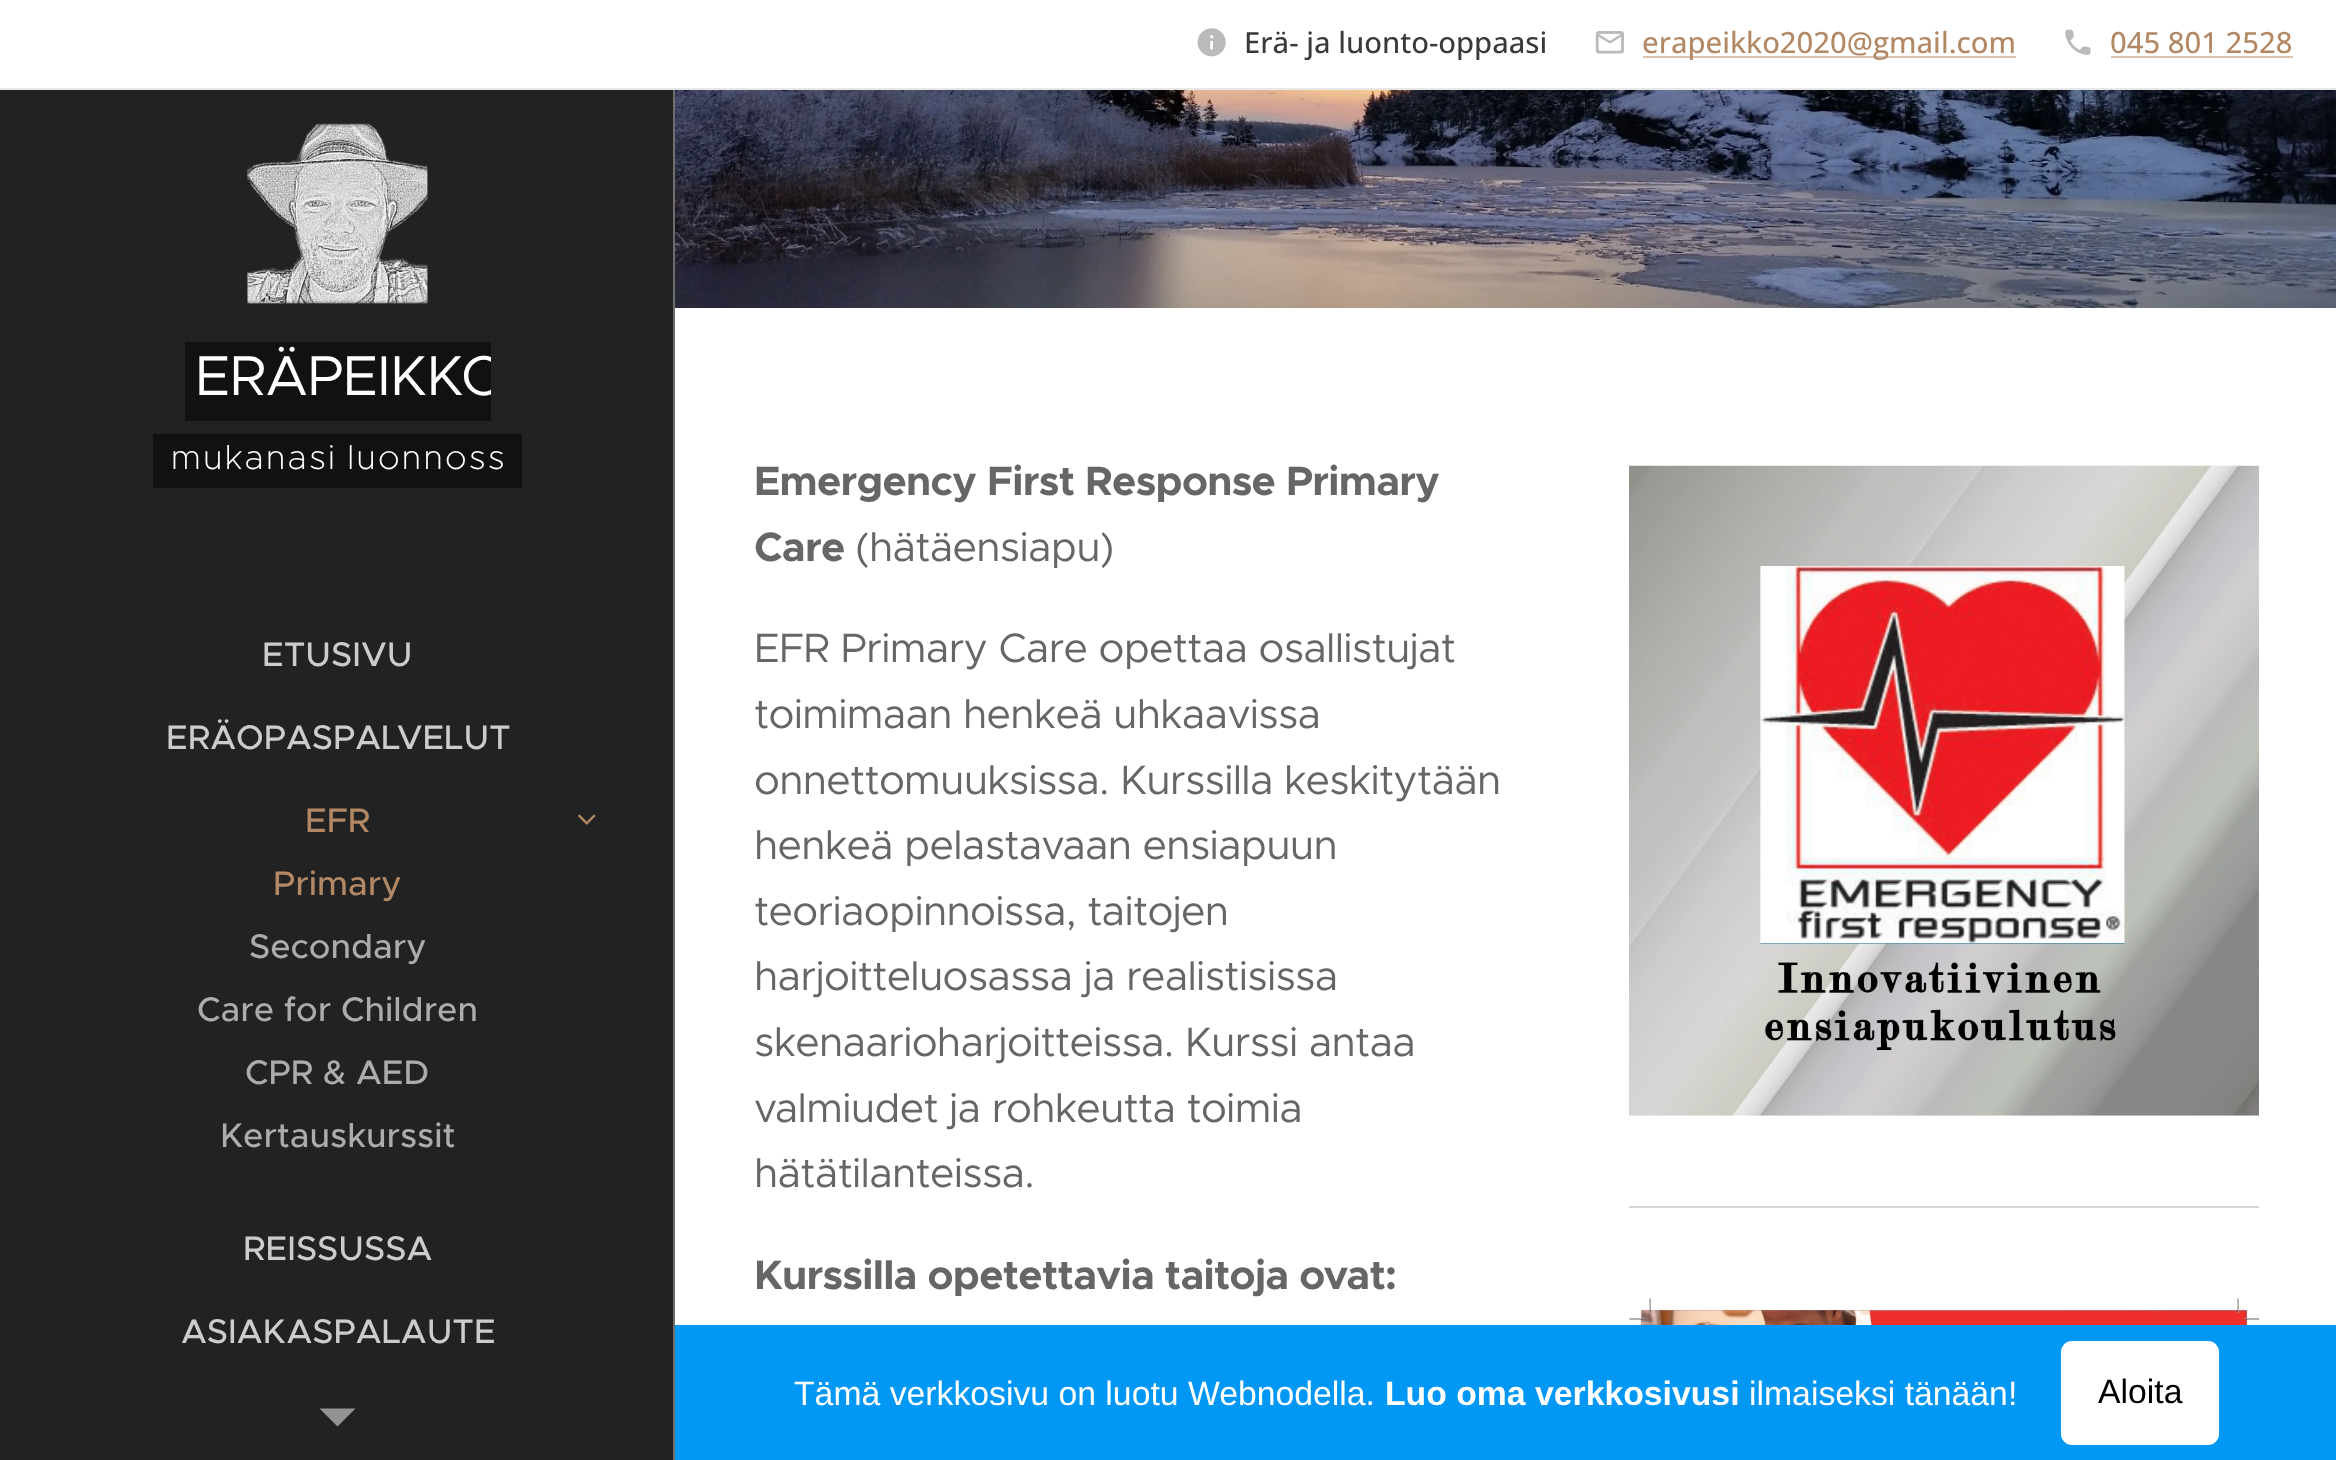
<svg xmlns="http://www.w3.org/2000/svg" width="2336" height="1460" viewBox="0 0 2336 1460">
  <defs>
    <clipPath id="clip1"><rect x="185" y="342" width="306" height="79"/></clipPath>
    <clipPath id="clip2"><rect x="153" y="434" width="369" height="54"/></clipPath>
  </defs>
  <rect width="100%" height="100%" fill="rgb(255,255,255)"/>
  <image x="1197" y="28" width="29" height="29" href="pic1.png"/>
  <text x="1244" y="53" font-family="Open Sans" font-size="29.25" font-weight="500" fill="rgb(57,57,57)">Erä- ja luonto-oppaasi</text>
  <image x="1595" y="31" width="29" height="23" href="pic2.png"/>
  <rect x="1643" y="56" width="373" height="2" fill="rgb(217,196,178)"/>
  <text x="1642" y="53" font-family="Open Sans" font-size="29.25" font-weight="500" fill="rgb(179,136,101)">erapeikko2020@gmail.com</text>
  <image x="2065" y="29" width="26" height="26" href="pic3.png"/>
  <text x="2110" y="53" font-family="Open Sans" font-size="29.25" font-weight="500" fill="rgb(179,136,101)">045 801 2528</text>
  <rect x="2111" y="56" width="182" height="2" fill="rgb(217,196,178)"/>
  <rect x="0" y="88" width="2336" height="2" fill="rgb(232,232,232)"/>
  <rect x="0" y="90" width="673" height="1370" fill="rgb(34,34,34)"/>
  <image x="247" y="123" width="181" height="181" href="pic4.png"/>
  <rect x="185" y="342" width="306" height="79" fill="rgb(17,17,17)"/>
  <g clip-path="url(#clip1)">
    <text x="195" y="395" font-family="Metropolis" font-size="56.25" letter-spacing="-0.7" fill="rgb(255,255,255)">ERÄPEIKKO</text>
  </g>
  <g clip-path="url(#clip2)">
    <path d="M131 434V488H164V434H477Z" fill="rgb(17,17,17)"/>
    <path d="M198 434H511V488H545V434Z" fill="rgb(17,17,17)"/>
  </g>
  <rect x="164" y="434" width="347" height="54" fill="rgb(17,17,17)"/>
  <text x="171" y="469" word-spacing="-2" font-family="Metropolis" font-size="34.25" font-weight="200" letter-spacing="2.25" fill="rgb(255,255,255)">mukanasi luonnoss</text>
  <g font-family="Metropolis" font-size="34.25" font-weight="500" fill="rgb(204,204,204)">
    <text x="262" y="666">ETUSIVU</text>
    <text x="166" y="749">ERÄOPASPALVELUT</text>
  </g>
  <text x="305" y="832" font-family="Metropolis" font-size="34.25" font-weight="500" fill="rgb(179,136,101)">EFR</text>
  <image x="578" y="814" width="18" height="11" href="pic5.png"/>
  <text x="273" y="895" font-family="Metropolis" font-size="34.25" font-weight="500" fill="rgb(179,136,101)">Primary</text>
  <g font-family="Metropolis" font-size="34.25" font-weight="500" fill="rgb(172,172,172)">
    <text x="249" y="958">Secondary</text>
    <text x="197" y="1021">Care for Children</text>
    <text x="245" y="1084">CPR &amp; AED</text>
    <text x="220" y="1147">Kertauskurssit</text>
  </g>
  <g font-family="Metropolis" font-size="34.25" font-weight="500" fill="rgb(204,204,204)">
    <text x="243" y="1260">REISSUSSA</text>
    <text x="181" y="1343">ASIAKASPALAUTE</text>
  </g>
  <path d="M319.5 1408.5H355.5L337.5 1426.5Z" fill="rgb(147,147,147)"/>
  <rect x="673" y="90" width="2" height="1370" fill="rgb(110,110,110)"/>
  <image x="675" y="90" width="1661" height="218" href="pic6.png"/>
  <g font-family="Metropolis" font-size="41" font-weight="bold" letter-spacing="-0.7" fill="rgb(102,102,102)">
    <text>
      <tspan x="754" y="495">Emergency First Response Primary</tspan>
      <tspan x="754" y="561">Care</tspan>
    </text>
  </g>
  <g font-family="Metropolis" font-size="41" letter-spacing="-0.7" fill="rgb(102,102,102)">
    <text x="855" y="561">(hätäensiapu)</text>
    <text>
      <tspan x="754" y="662">EFR Primary Care opettaa osallistujat</tspan>
      <tspan x="754" y="728">toimimaan henkeä uhkaavissa</tspan>
      <tspan x="754" y="794">onnettomuuksissa. Kurssilla keskitytään</tspan>
      <tspan x="754" y="859">henkeä pelastavaan ensiapuun</tspan>
      <tspan x="754" y="925">teoriaopinnoissa, taitojen</tspan>
      <tspan x="754" y="990">harjoitteluosassa ja realistisissa</tspan>
      <tspan x="754" y="1056">skenaarioharjoitteissa. Kurssi antaa</tspan>
      <tspan x="754" y="1122">valmiudet ja rohkeutta toimia</tspan>
      <tspan x="754" y="1187">hätätilanteissa.</tspan>
    </text>
  </g>
  <text x="754" y="1289" font-family="Metropolis" font-size="41" font-weight="bold" letter-spacing="-0.7" fill="rgb(102,102,102)">Kurssilla opetettavia taitoja ovat:</text>
  <image x="1629" y="465" width="630" height="651" href="pic7.png"/>
  <rect x="1629" y="1206" width="630" height="2" fill="rgb(212,212,212)"/>
  <image x="1629" y="1298" width="630" height="27" href="pic8.png"/>
  <rect x="675" y="1325" width="1661" height="135" fill="rgb(0,151,245)"/>
  <text x="794" y="1405" font-family="Liberation Sans" font-size="33.75" fill="rgb(255,255,255)">Tämä verkkosivu on luotu Webnodella.</text>
  <text x="1385" y="1405" font-family="Liberation Sans" font-size="33.75" font-weight="bold" fill="rgb(255,255,255)">Luo oma verkkosivusi</text>
  <text x="1749" y="1405" font-family="Liberation Sans" font-size="33.75" fill="rgb(255,255,255)">ilmaiseksi tänään!</text>
  <rect x="2061" y="1341" width="158" height="104" rx="11" fill="rgb(255,255,255)"/>
  <text x="2098" y="1403" font-family="Liberation Sans" font-size="33.75" fill="rgb(0,0,0)">Aloita</text>
</svg>
